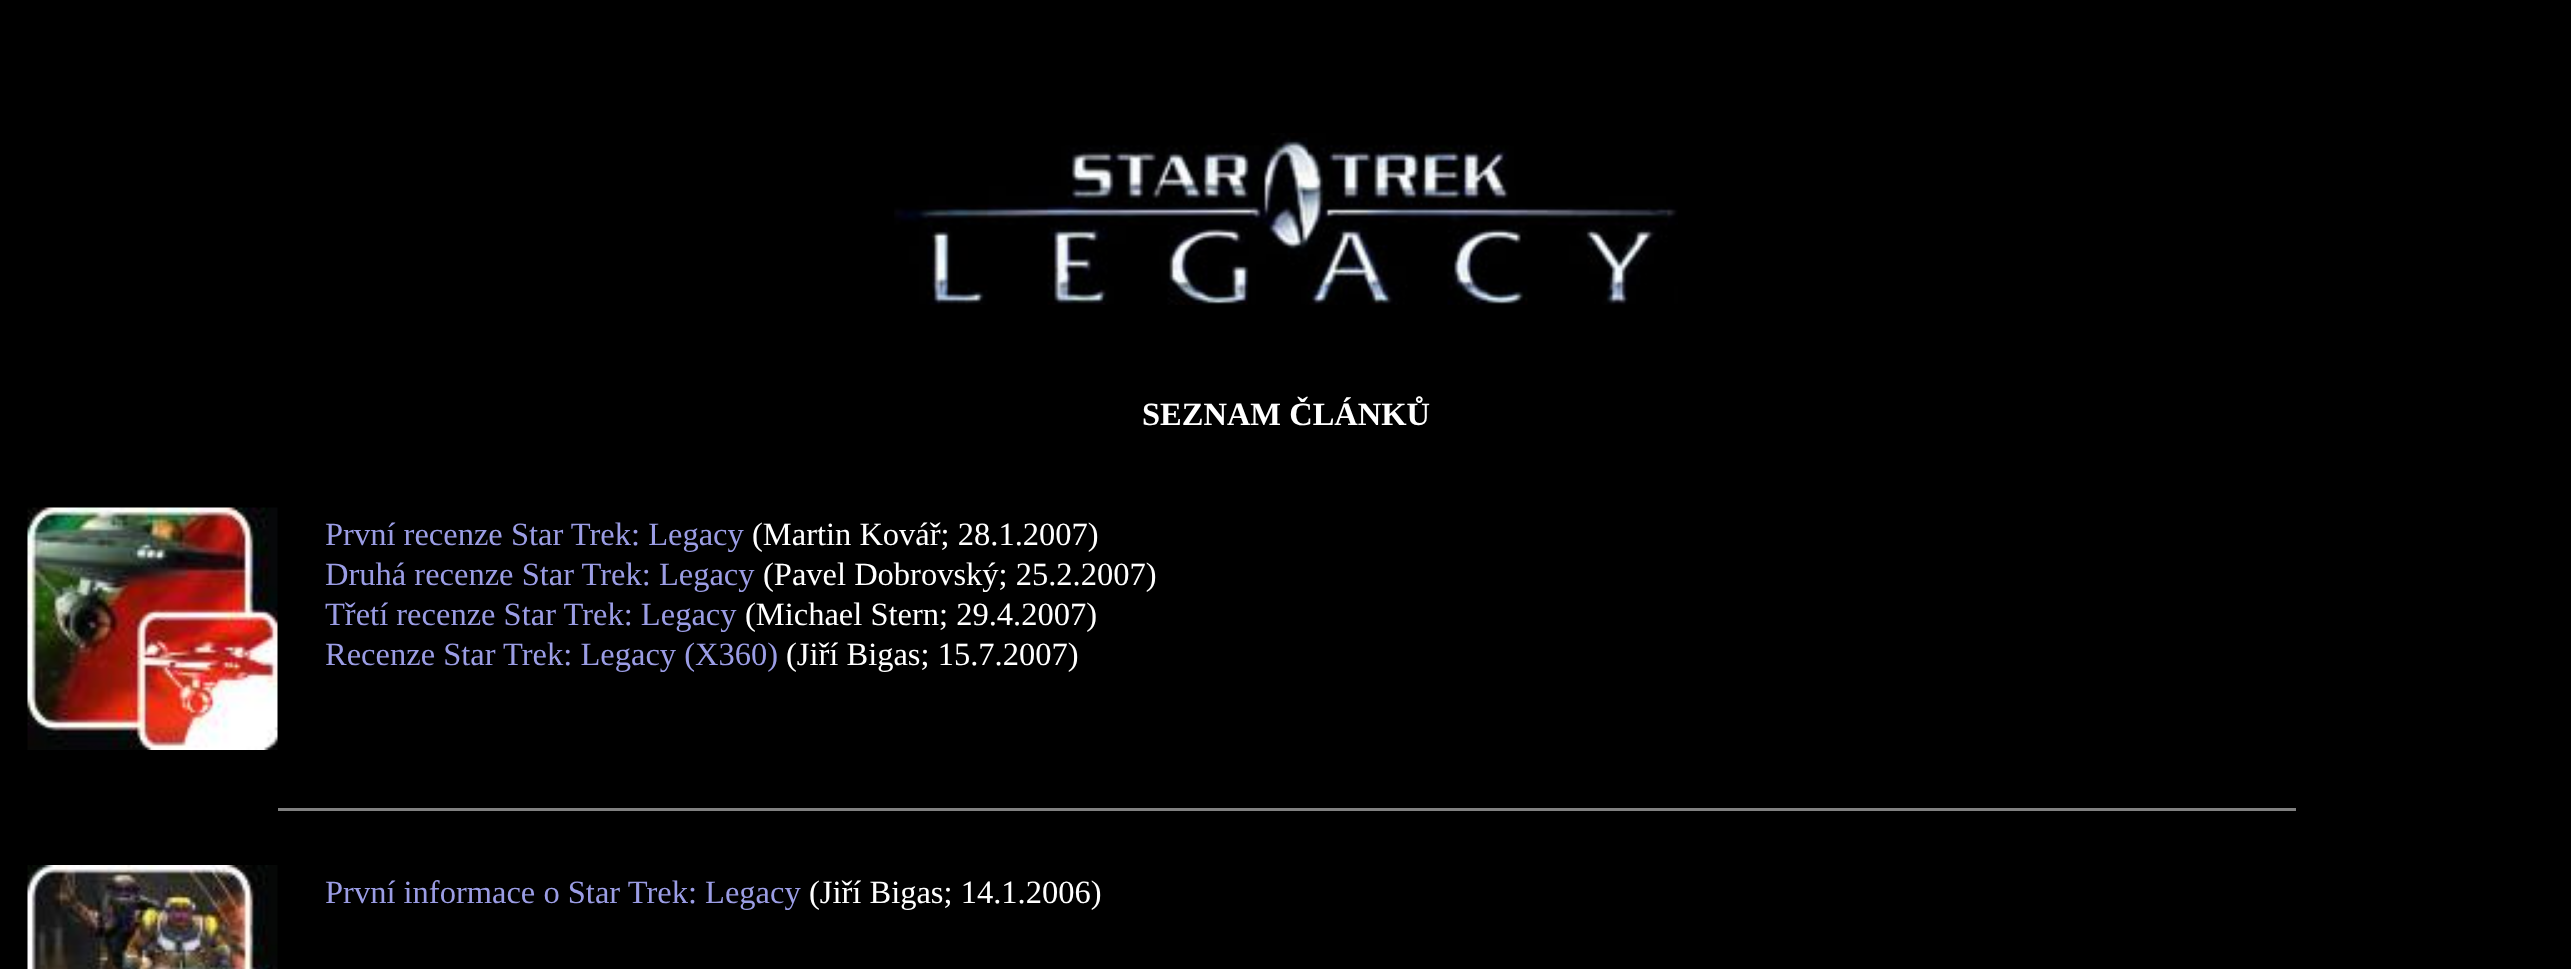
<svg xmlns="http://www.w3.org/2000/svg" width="2571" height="969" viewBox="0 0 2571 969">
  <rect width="100%" height="100%" fill="rgb(0,0,0)"/>
  <image x="894" y="133" width="784" height="172" href="pic1.png"/>
  <text x="1142" y="425" font-family="Liberation Serif" font-size="32.5" font-weight="bold" fill="rgb(255,255,255)">SEZNAM ČLÁNKŮ</text>
  <image x="27" y="507" width="251" height="243" href="pic2.png"/>
  <text x="325" y="545" font-family="Liberation Serif" font-size="32.5" fill="rgb(155,157,229)">První recenze Star Trek: Legacy</text>
  <text x="752" y="545" font-family="Liberation Serif" font-size="32.5" fill="rgb(255,255,255)">(Martin Kovář; 28.1.2007)</text>
  <text x="325" y="585" font-family="Liberation Serif" font-size="32.5" fill="rgb(155,157,229)">Druhá recenze Star Trek: Legacy</text>
  <text x="763" y="585" font-family="Liberation Serif" font-size="32.5" fill="rgb(255,255,255)">(Pavel Dobrovský; 25.2.2007)</text>
  <text x="325" y="625" font-family="Liberation Serif" font-size="32.5" fill="rgb(155,157,229)">Třetí recenze Star Trek: Legacy</text>
  <text x="745" y="625" font-family="Liberation Serif" font-size="32.5" fill="rgb(255,255,255)">(Michael Stern; 29.4.2007)</text>
  <text x="325" y="665" font-family="Liberation Serif" font-size="32.5" fill="rgb(155,157,229)">Recenze Star Trek: Legacy (X360)</text>
  <text x="786" y="665" font-family="Liberation Serif" font-size="32.5" fill="rgb(255,255,255)">(Jiří Bigas; 15.7.2007)</text>
  <rect x="278" y="808" width="2018" height="3" fill="rgb(128,128,128)"/>
  <image x="27" y="865" width="251" height="104" href="pic3.png"/>
  <text x="325" y="903" font-family="Liberation Serif" font-size="32.5" fill="rgb(155,157,229)">První informace o Star Trek: Legacy</text>
  <text x="809" y="903" font-family="Liberation Serif" font-size="32.5" fill="rgb(255,255,255)">(Jiří Bigas; 14.1.2006)</text>
</svg>
